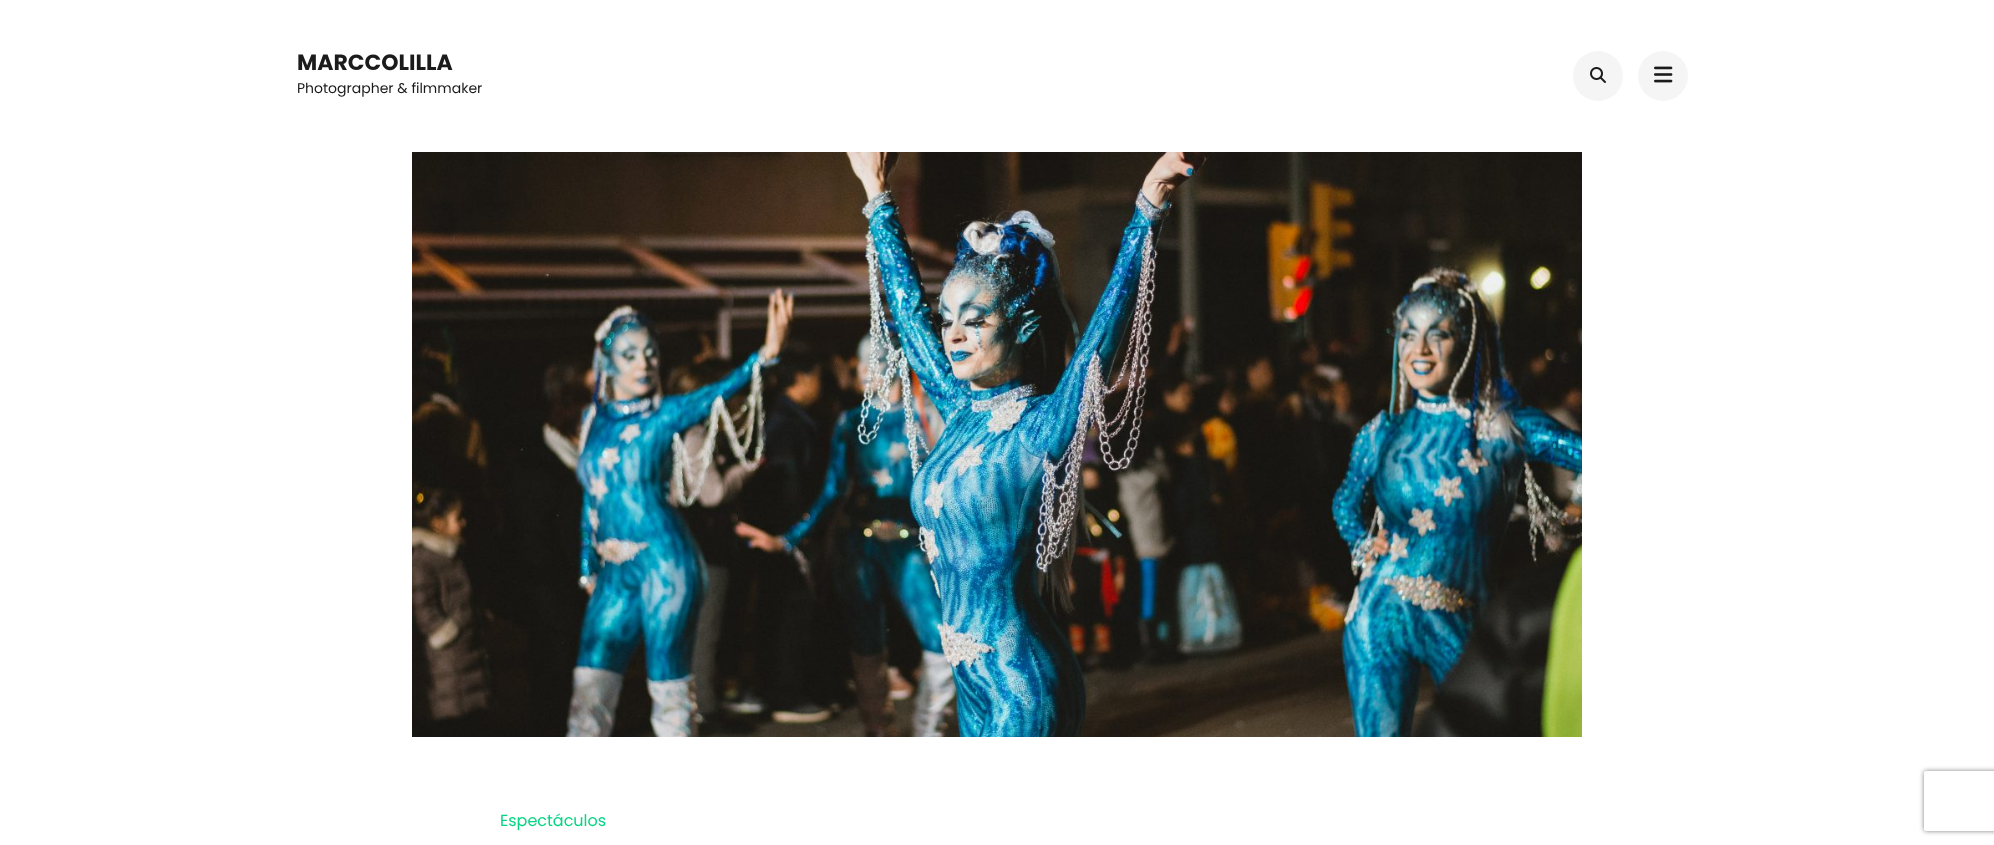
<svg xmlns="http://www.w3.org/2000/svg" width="1994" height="845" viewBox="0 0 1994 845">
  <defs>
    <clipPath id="clip1"><path d="M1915 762H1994V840H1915ZM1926 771H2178C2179 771 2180 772 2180 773V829C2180 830 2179 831 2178 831H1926C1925 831 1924 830 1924 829V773C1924 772 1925 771 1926 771Z" clip-rule="evenodd"/></clipPath>
  </defs>
  <rect width="100%" height="100%" fill="rgb(255,255,255)"/>
  <text x="297" y="70" font-family="Poppins" font-size="22" font-weight="bold" fill="rgb(28,27,27)">MARCCOLILLA</text>
  <text x="297" y="93" font-family="Poppins" font-size="14" fill="rgb(28,27,27)">Photographer &amp; filmmaker</text>
  <circle cx="1598" cy="76" r="25" fill="rgb(245,245,245)"/>
  <image x="1590" y="67" width="16" height="16" href="pic1.png"/>
  <circle cx="1663" cy="76" r="25" fill="rgb(245,245,245)"/>
  <image x="1654" y="66" width="19" height="17" href="pic2.png"/>
  <image x="412" y="152" width="1170" height="585" href="pic3.png"/>
  <text x="500" y="826" font-family="Poppins" font-size="16" fill="rgb(5,213,132)">Espectáculos</text>
  <g clip-path="url(#clip1)">
    <rect x="1924" y="771" width="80" height="60" rx="2" fill="rgb(128,128,128)" filter="blur(2.5px)"/>
  </g>
</svg>
